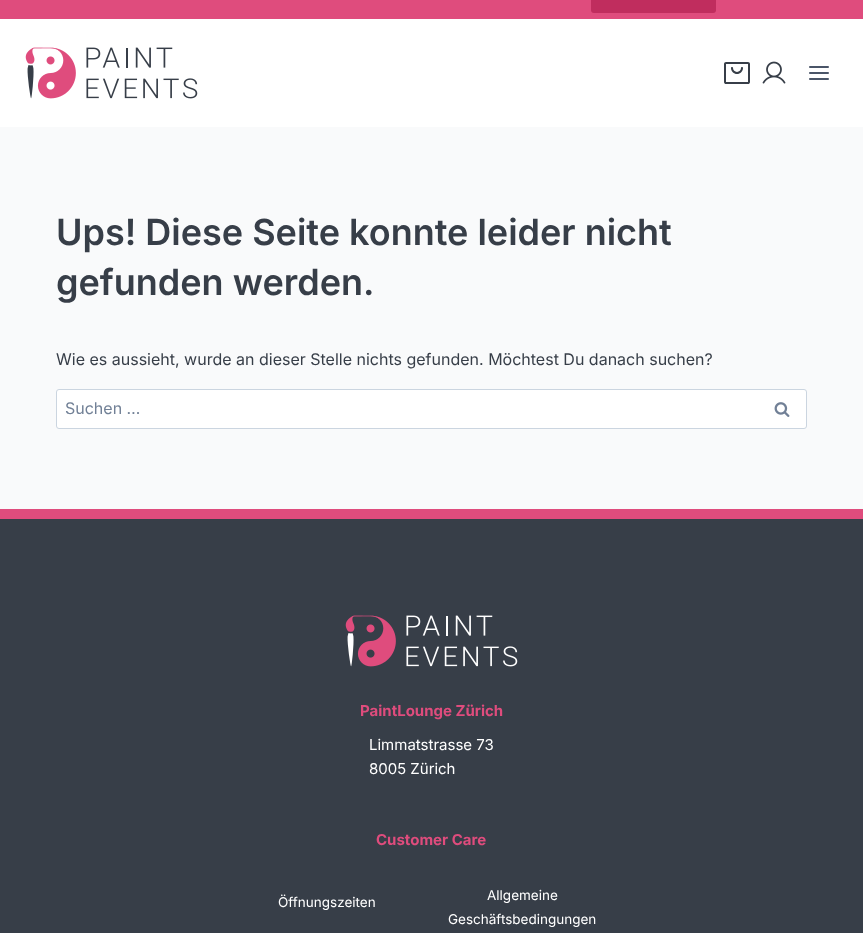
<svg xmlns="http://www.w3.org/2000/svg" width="863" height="933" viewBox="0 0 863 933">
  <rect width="100%" height="100%" fill="rgb(249,250,251)"/>
  <rect x="0" y="0" width="863" height="19" fill="rgb(223,76,125)"/>
  <rect x="591" y="-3" width="125" height="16" rx="3" fill="rgb(192,45,94)"/>
  <rect x="0" y="19" width="863" height="108" fill="rgb(255,255,255)"/>
  <image x="25" y="47" width="173" height="52" href="pic1.png"/>
  <image x="724" y="62" width="26" height="22" href="pic2.png"/>
  <image x="762" y="61" width="24" height="23" href="pic3.png"/>
  <image x="809" y="66" width="20" height="14" href="pic4.png"/>
  <g font-family="Inter" font-size="36" font-weight="600" fill="rgb(55,62,72)">
    <text>
      <tspan x="56" y="245">Ups! Diese Seite konnte leider nicht</tspan>
      <tspan x="56" y="295">gefunden werden.</tspan>
    </text>
  </g>
  <text x="56" y="365" font-family="Inter" font-size="16" fill="rgb(55,62,72)">Wie es aussieht, wurde an dieser Stelle nichts gefunden. Möchtest Du danach suchen?</text>
  <rect x="56.5" y="389.5" width="750" height="39" rx="2.5" fill="rgb(255,255,255)" stroke="rgb(203,213,224)"/>
  <text x="65" y="414" font-family="Inter" font-size="16" fill="rgb(113,128,150)">Suchen …</text>
  <image x="774" y="402" width="16" height="15" href="pic5.png"/>
  <rect x="0" y="519" width="863" height="414" fill="rgb(55,62,72)"/>
  <rect x="0" y="509" width="863" height="10" fill="rgb(223,76,125)"/>
  <image x="345" y="615" width="173" height="52" href="pic6.png"/>
  <text x="360" y="716" font-family="Inter" font-size="15" font-weight="bold" fill="rgb(223,76,125)">PaintLounge Zürich</text>
  <g font-family="Inter" font-size="15" fill="rgb(255,255,255)">
    <text>
      <tspan x="369" y="750">Limmatstrasse 73</tspan>
      <tspan x="369" y="774">8005 Zürich</tspan>
    </text>
  </g>
  <text x="376" y="845" font-family="Inter" font-size="15" font-weight="bold" fill="rgb(223,76,125)">Customer Care</text>
  <g font-family="Inter" font-size="13.5" fill="rgb(255,255,255)">
    <text x="278" y="907">Öffnungszeiten</text>
    <text x="487" y="900">Allgemeine</text>
    <text x="448" y="924">Geschäftsbedingungen</text>
  </g>
</svg>
